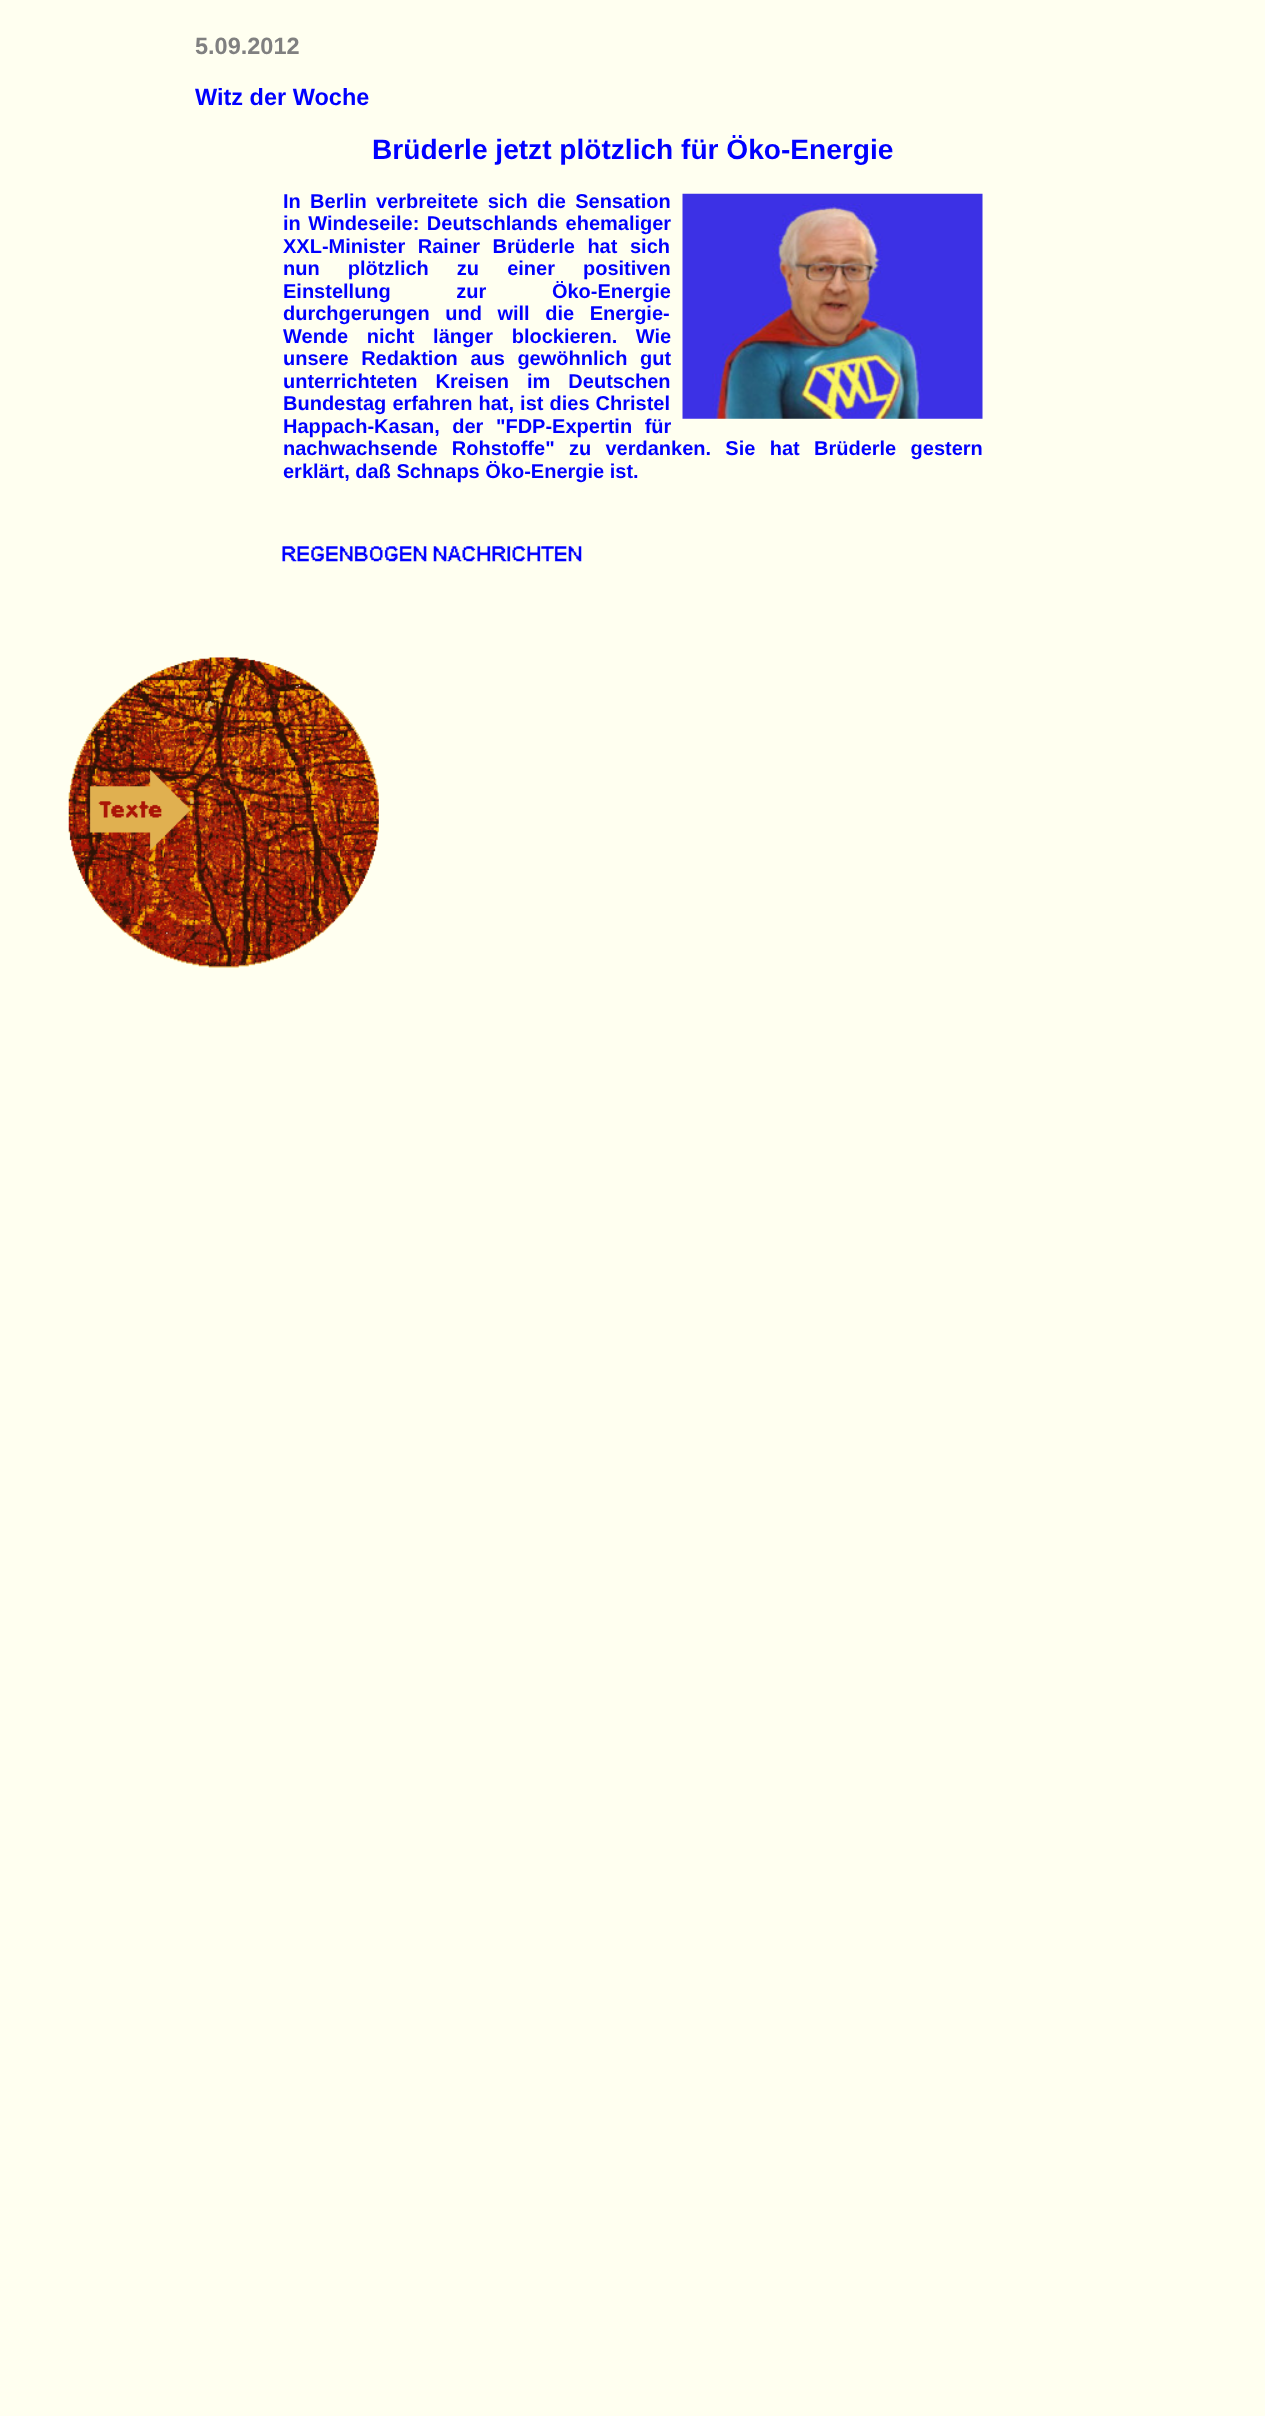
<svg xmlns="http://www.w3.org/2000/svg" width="1265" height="2416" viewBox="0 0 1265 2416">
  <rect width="100%" height="100%" fill="rgb(255,255,240)"/>
  <text x="195" y="54" font-family="Liberation Sans" font-size="23.5" font-weight="bold" fill="rgb(128,128,128)">5.09.2012</text>
  <text x="195" y="105" font-family="Liberation Sans" font-size="23.5" font-weight="bold" fill="rgb(0,0,255)">Witz der Woche</text>
  <text x="372" y="159" font-family="Liberation Sans" font-size="28.1" font-weight="bold" fill="rgb(0,0,255)">Brüderle jetzt plötzlich für Öko-Energie</text>
  <text x="283" y="208" word-spacing="3.75" font-family="Liberation Sans" font-size="20" font-weight="bold" fill="rgb(0,0,255)">In Berlin verbreitete sich die Sensation</text>
  <image x="682" y="193" width="301" height="226" href="pic1.png"/>
  <g font-family="Liberation Sans" font-size="20" font-weight="bold" fill="rgb(0,0,255)">
    <text>
      <tspan x="283" y="230" word-spacing="2">in Windeseile: Deutschlands ehemaliger</tspan>
      <tspan x="283" y="253" word-spacing="7">XXL-Minister Rainer Brüderle hat sich</tspan>
      <tspan x="283" y="275" word-spacing="22.5">nun plötzlich zu einer positiven</tspan>
      <tspan x="283" y="298" word-spacing="60">Einstellung zur Öko-Energie</tspan>
      <tspan x="283" y="320" word-spacing="10">durchgerungen und will die Energie-</tspan>
      <tspan x="283" y="343" word-spacing="13">Wende nicht länger blockieren. Wie</tspan>
      <tspan x="283" y="365" word-spacing="7">unsere Redaktion aus gewöhnlich gut</tspan>
      <tspan x="283" y="388" word-spacing="12.5">unterrichteten Kreisen im Deutschen</tspan>
      <tspan x="283" y="410" word-spacing="0.5">Bundestag erfahren hat, ist dies Christel</tspan>
      <tspan x="283" y="433" word-spacing="7">Happach-Kasan, der "FDP-Expertin für</tspan>
      <tspan x="283" y="455" word-spacing="8.75">nachwachsende Rohstoffe" zu verdanken. Sie hat Brüderle gestern</tspan>
      <tspan x="283" y="478">erklärt, daß Schnaps Öko-Energie ist.</tspan>
    </text>
  </g>
  <image x="282" y="546" width="300" height="16" href="pic2.png"/>
  <image x="68" y="657" width="311" height="311" href="pic3.png"/>
</svg>
